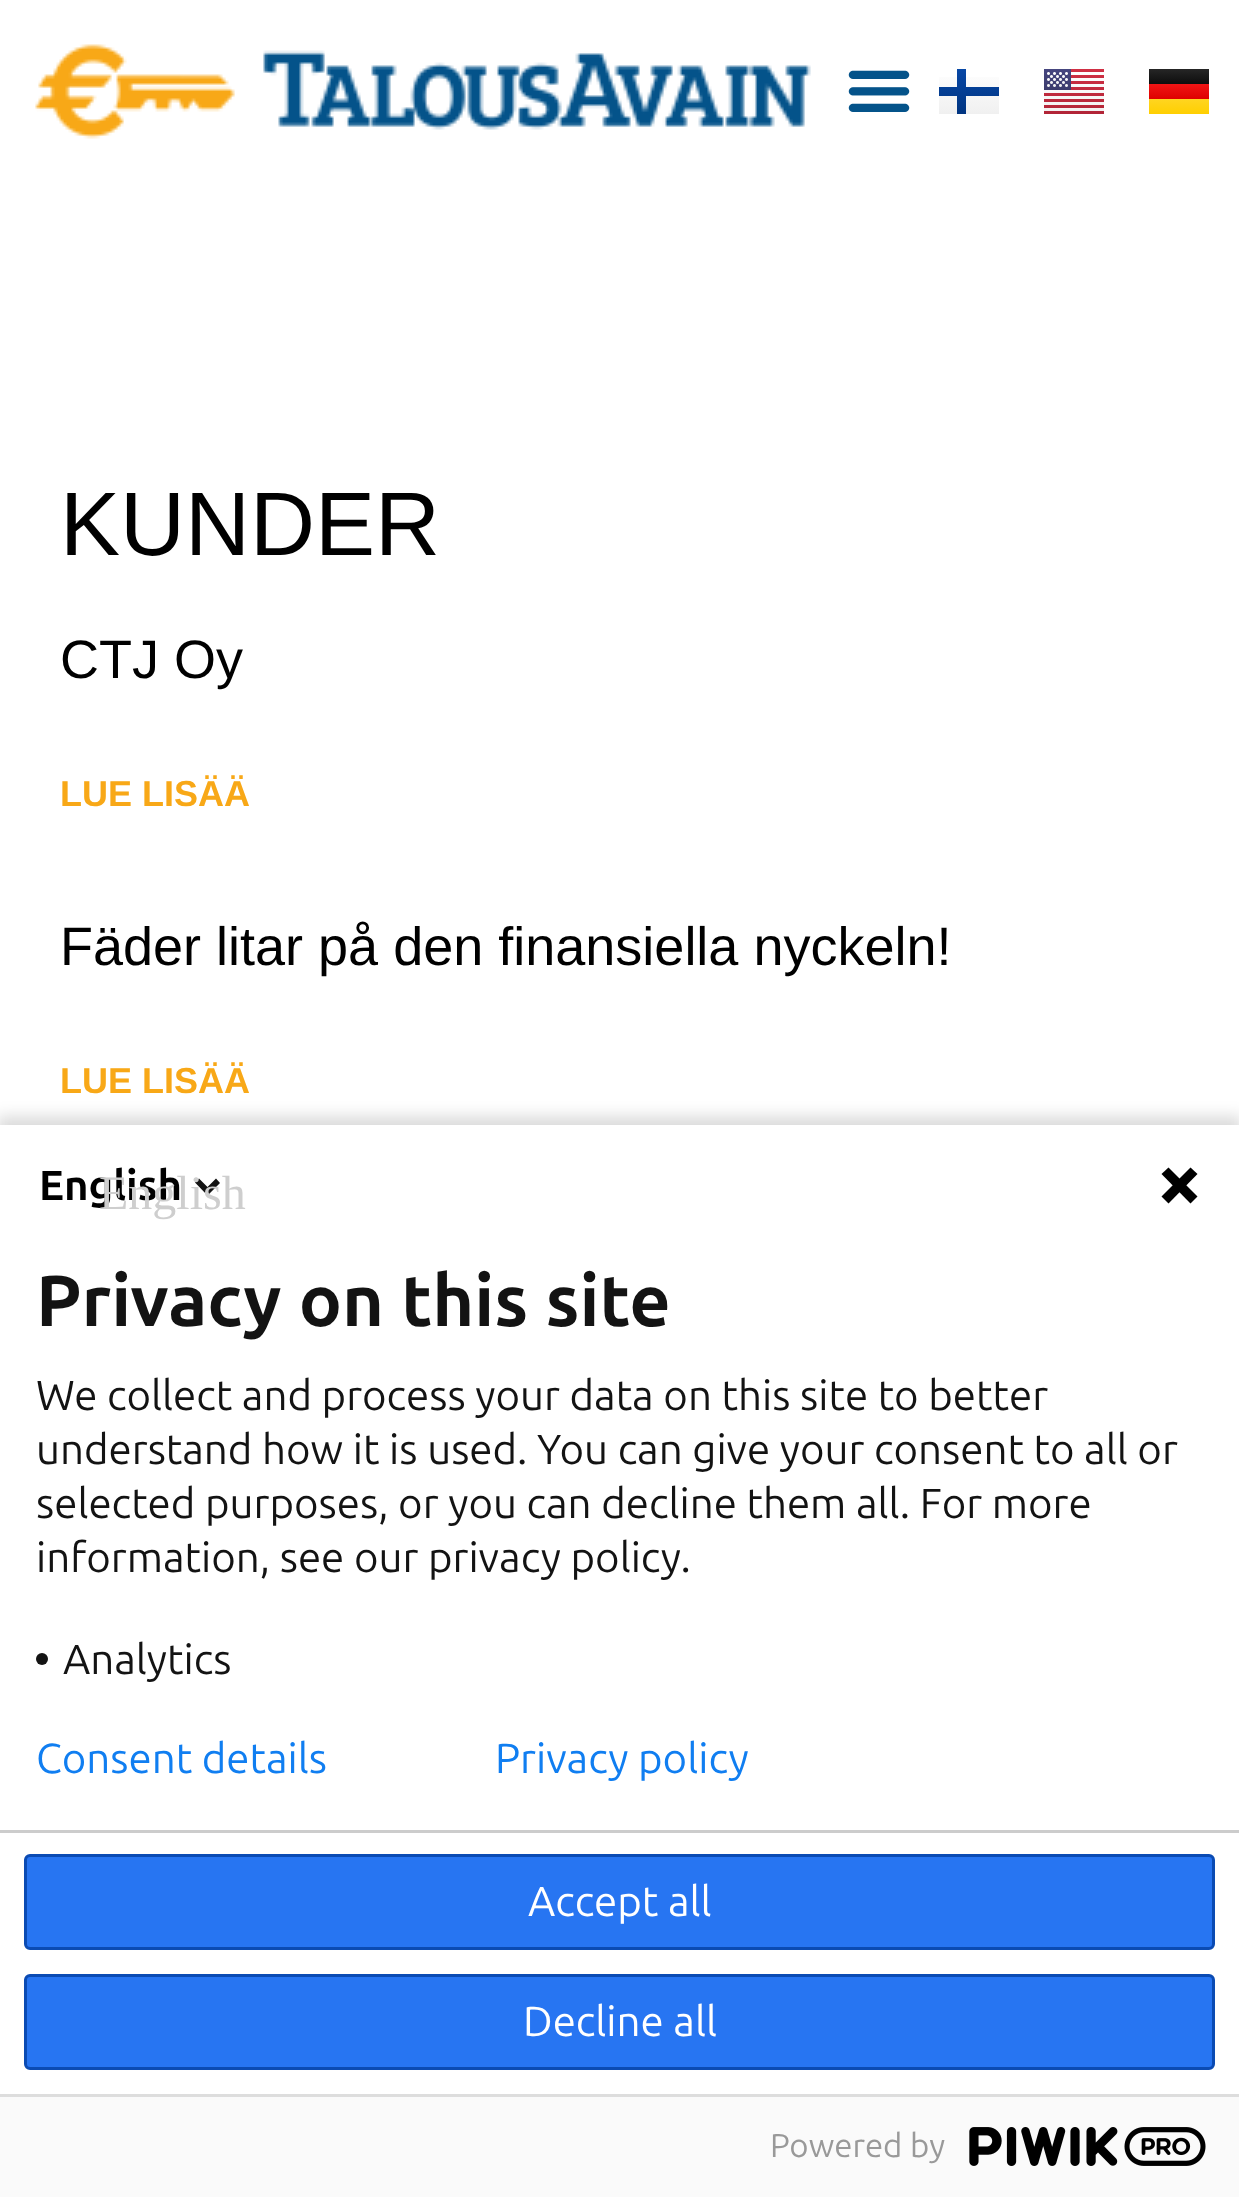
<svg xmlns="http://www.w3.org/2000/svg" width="1239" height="2197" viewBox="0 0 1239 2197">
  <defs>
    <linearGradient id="g1" gradientUnits="userSpaceOnUse" x1="971" y1="69" x2="971" y2="114"><stop offset="0" stop-color="rgb(255,255,255)"/><stop offset="1" stop-color="rgb(240,240,240)"/></linearGradient>
    <clipPath id="clip1"><rect x="939" y="69" width="60" height="45"/></clipPath>
    <linearGradient id="g2" gradientUnits="userSpaceOnUse" x1="971" y1="69" x2="971" y2="114"><stop offset="0" stop-color="rgb(8,72,166)"/><stop offset="1" stop-color="rgb(0,52,128)"/></linearGradient>
    <linearGradient id="g3" gradientUnits="userSpaceOnUse" x1="1181" y1="69" x2="1181" y2="84"><stop offset="0" stop-color="rgb(38,38,38)"/><stop offset="1" stop-color="rgb(13,13,13)"/></linearGradient>
    <linearGradient id="g4" gradientUnits="userSpaceOnUse" x1="1181" y1="84" x2="1181" y2="99"><stop offset="0" stop-color="rgb(240,21,21)"/><stop offset="1" stop-color="rgb(222,0,0)"/></linearGradient>
    <linearGradient id="g5" gradientUnits="userSpaceOnUse" x1="1181" y1="99" x2="1181" y2="114"><stop offset="0" stop-color="rgb(255,213,33)"/><stop offset="1" stop-color="rgb(255,207,0)"/></linearGradient>
  </defs>
  <rect width="100%" height="100%" fill="rgb(255,255,255)"/>
  <image x="35" y="44" width="776" height="95" href="pic1.png"/>
  <image x="848" y="70" width="62" height="42" href="pic2.png"/>
  <rect x="939" y="77" width="60" height="37" fill="url(#g1)"/>
  <g clip-path="url(#clip1)">
    <path d="M939 96H957V114H966V96H1002V87H966V69H957V87H939Z" fill="url(#g2)" fill-rule="evenodd"/>
  </g>
  <image x="1044" y="69" width="60" height="45" href="pic3.png"/>
  <rect x="1149" y="69" width="60" height="15" fill="url(#g3)"/>
  <rect x="1149" y="84" width="60" height="15" fill="url(#g4)"/>
  <rect x="1149" y="99" width="60" height="15" fill="url(#g5)"/>
  <text x="60" y="555" font-family="Liberation Sans" font-size="90" fill="rgb(0,0,0)">KUNDER</text>
  <text x="60" y="678" font-family="Liberation Sans" font-size="54" fill="rgb(0,0,0)">CTJ Oy</text>
  <text x="60" y="806" font-family="Liberation Sans" font-size="36" font-weight="bold" fill="rgb(248,168,23)">LUE LISÄÄ</text>
  <text x="60" y="965" font-family="Liberation Sans" font-size="54" fill="rgb(0,0,0)">Fäder litar på den finansiella nyckeln!</text>
  <text x="60" y="1093" font-family="Liberation Sans" font-size="36" font-weight="bold" fill="rgb(248,168,23)">LUE LISÄÄ</text>
  <rect x="-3" y="1116" width="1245" height="1080" fill="rgba(0,0,0,0.14)" filter="blur(7.5px)"/>
  <rect x="0" y="1125" width="1239" height="969" fill="rgb(255,255,255)"/>
  <text x="39" y="1200" font-family="Ubuntu" font-size="42" font-weight="bold" fill="rgb(0,0,0)">English</text>
  <path d="M207.5 1187L216 1178.5L220 1183L207.5 1195.5L195 1182.5L199 1178.5Z" fill="rgb(19,19,19)"/>
  <text x="99" y="1209" font-family="Liberation Serif" font-size="48" fill="rgb(206,206,206)">English</text>
  <path d="M1161.5 1174L1168.5 1167.5L1197.5 1196.5L1190.5 1203.5L1161.5 1174" fill="rgb(0,0,0)"/>
  <path d="M1190.5 1167.5L1197.5 1174L1168.5 1203.5L1161.5 1196.5L1190.5 1167.5" fill="rgb(0,0,0)"/>
  <text x="36" y="1326" font-family="Ubuntu" font-size="72" font-weight="bold" fill="rgb(19,19,19)">Privacy on this site</text>
  <g font-family="Ubuntu" font-size="42" fill="rgb(19,19,19)">
    <text>
      <tspan x="36" y="1410">We collect and process your data on this site to better</tspan>
      <tspan x="36" y="1464">understand how it is used. You can give your consent to all or</tspan>
      <tspan x="36" y="1518">selected purposes, or you can decline them all. For more</tspan>
      <tspan x="36" y="1572">information, see our privacy policy.</tspan>
    </text>
  </g>
  <circle cx="42" cy="1659" r="6" fill="rgb(19,19,19)"/>
  <text x="63" y="1674" font-family="Ubuntu" font-size="42" fill="rgb(19,19,19)">Analytics</text>
  <rect x="0" y="1830" width="1239" height="3" fill="rgb(204,204,204)"/>
  <rect x="25.5" y="1855.5" width="1188" height="93" rx="4.5" fill="rgb(39,117,242)" stroke="rgb(11,75,179)" stroke-width="3"/>
  <text x="528" y="1916" font-family="Ubuntu" font-size="42" fill="rgb(255,255,255)">Accept all</text>
  <rect x="25.5" y="1975.5" width="1188" height="93" rx="4.5" fill="rgb(39,117,242)" stroke="rgb(11,75,179)" stroke-width="3"/>
  <text x="523" y="2036" font-family="Ubuntu" font-size="42" fill="rgb(255,255,255)">Decline all</text>
  <g font-family="Ubuntu" font-size="42" fill="rgb(16,126,241)">
    <text x="36" y="1773">Consent details</text>
    <text x="495" y="1773">Privacy policy</text>
  </g>
  <rect x="0" y="2097" width="1239" height="100" fill="rgb(250,250,250)"/>
  <rect x="0" y="2094" width="1239" height="3" fill="rgb(221,221,221)"/>
  <text x="770" y="2157" font-family="Ubuntu" font-size="33" fill="rgb(153,153,153)">Powered by</text>
  <image x="969" y="2127" width="237" height="39" href="pic4.png"/>
</svg>
